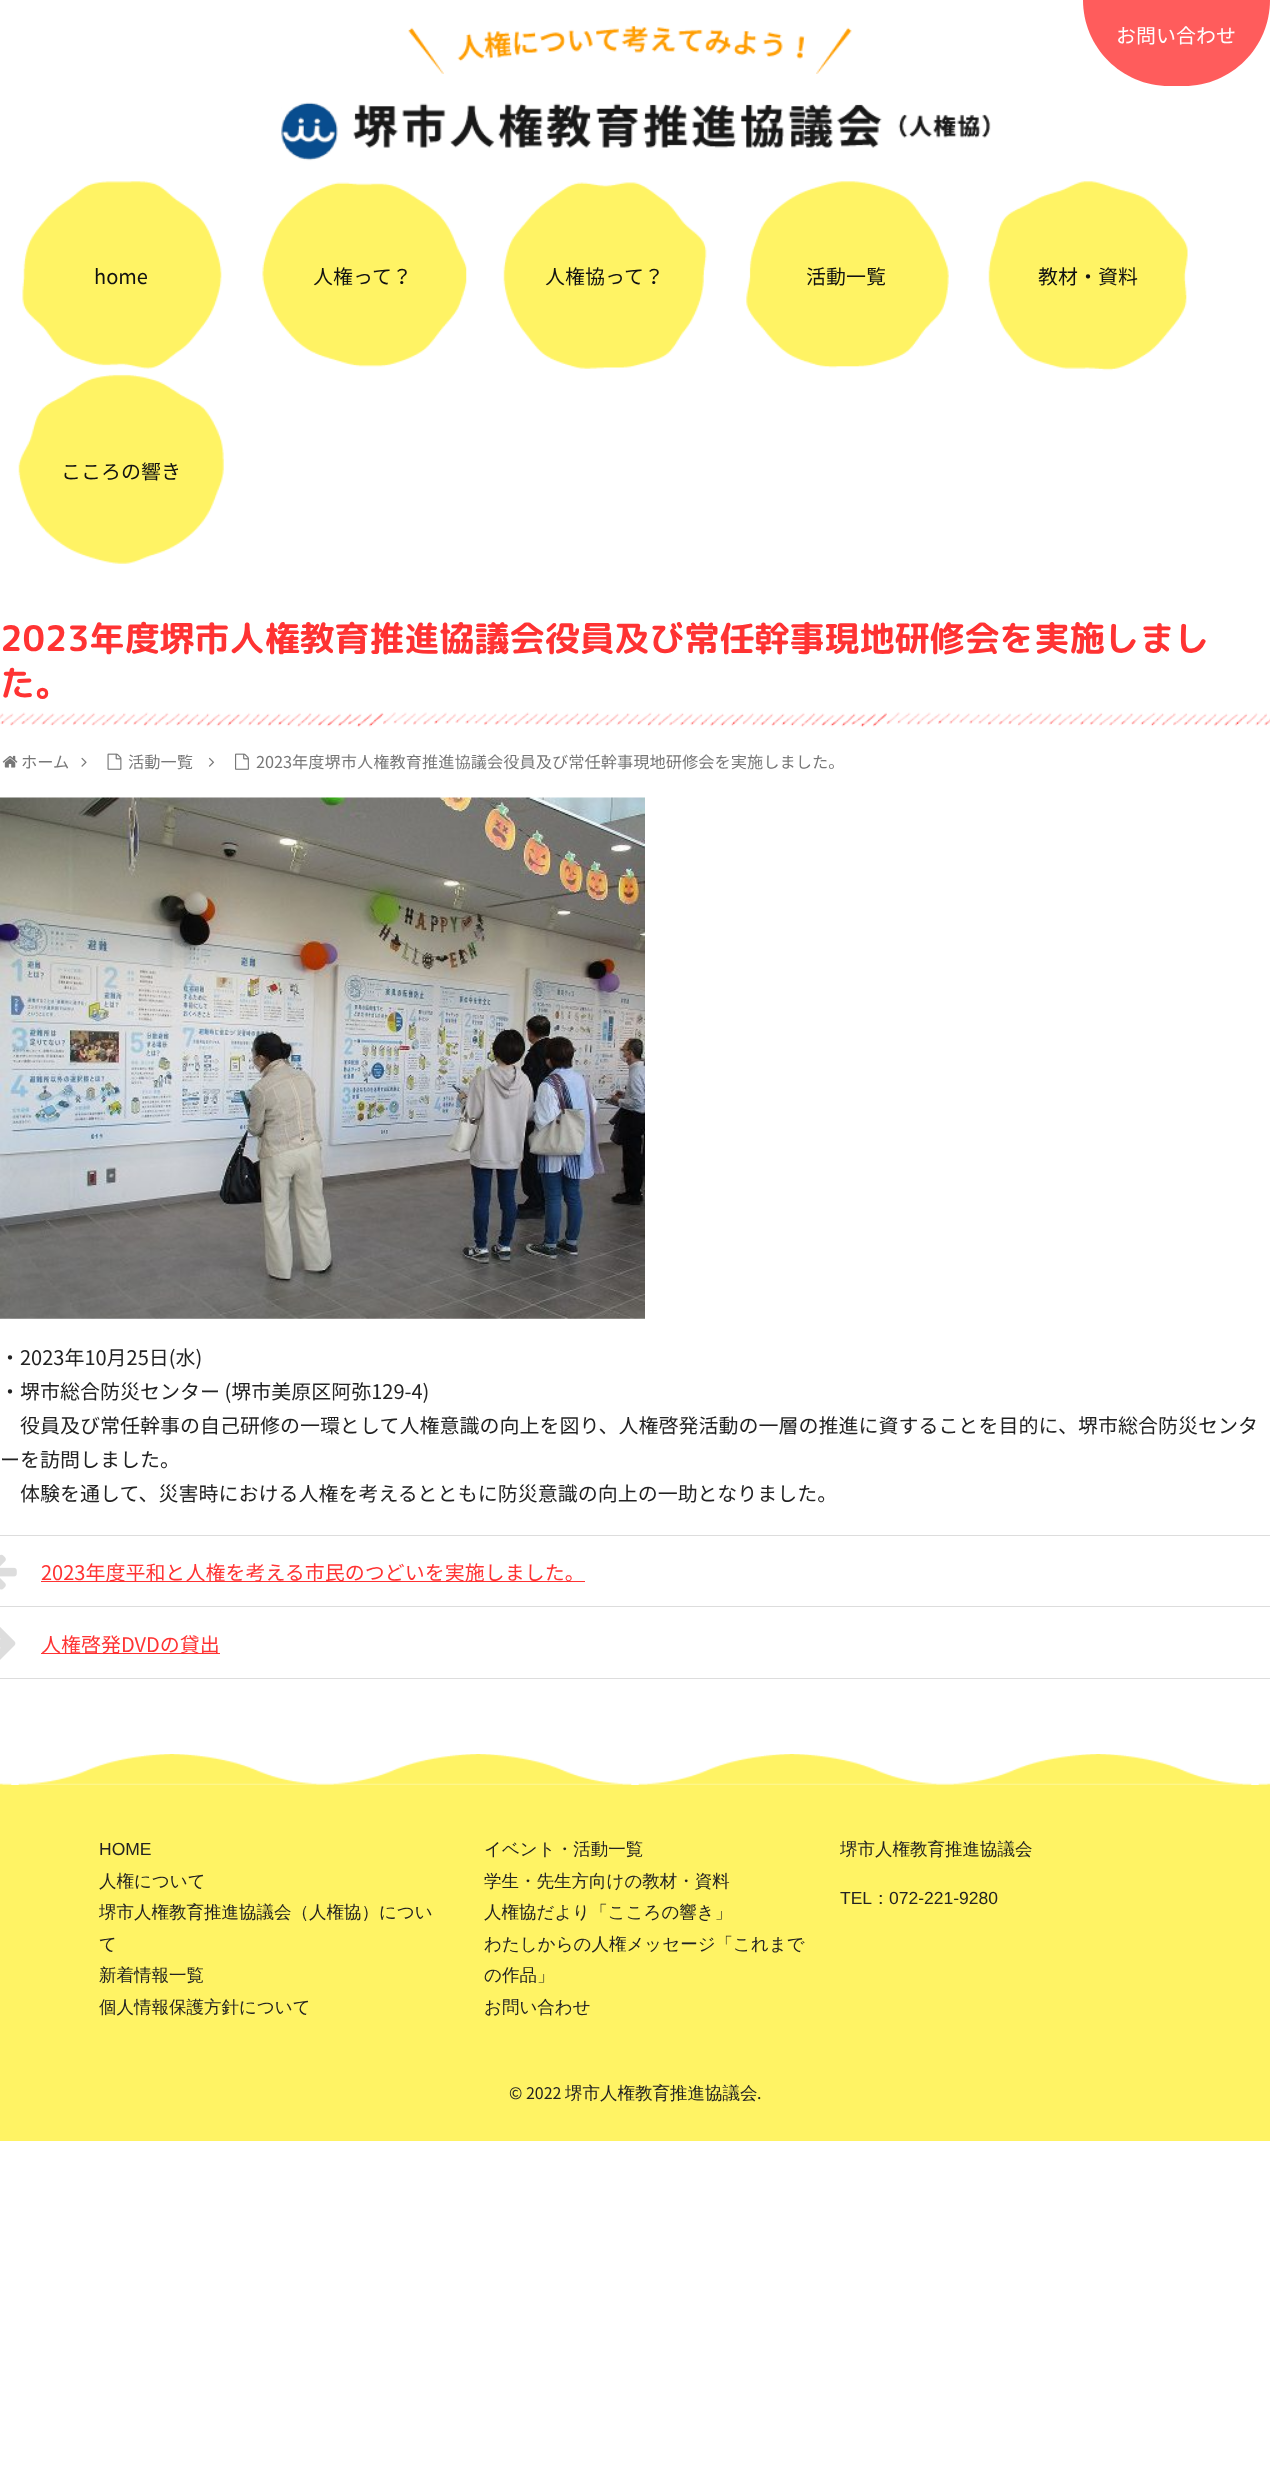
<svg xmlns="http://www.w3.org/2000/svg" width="1270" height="2482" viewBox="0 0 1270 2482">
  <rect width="100%" height="100%" fill="rgb(255,255,255)"/>
  <image x="281" y="26" width="710" height="135" href="pic1.png"/>
  <path d="M1083 0H1270C1270 47.5 1231.5 86 1184 86H1169C1121.5 86 1083 47.5 1083 0Z" fill="rgb(255,92,92)"/>
  <text x="1116" y="43" font-family="Noto Sans JP" font-size="20" fill="rgb(255,255,255)">お問い合わせ</text>
  <image x="22" y="181" width="200" height="188" href="pic2.png"/>
  <text x="94" y="284" font-family="Noto Sans JP" font-size="20" fill="rgb(17,17,17)">home</text>
  <image x="262" y="182" width="205" height="185" href="pic3.png"/>
  <text x="313" y="284" font-family="Noto Sans JP" font-size="20" fill="rgb(17,17,17)">人権って？</text>
  <image x="503" y="182" width="204" height="187" href="pic4.png"/>
  <text x="545" y="284" font-family="Noto Sans JP" font-size="20" fill="rgb(17,17,17)">人権協って？</text>
  <image x="746" y="181" width="203" height="187" href="pic5.png"/>
  <text x="806" y="284" font-family="Noto Sans JP" font-size="20" fill="rgb(17,17,17)">活動一覧</text>
  <image x="988" y="181" width="200" height="190" href="pic6.png"/>
  <text x="1038" y="284" font-family="Noto Sans JP" font-size="20" fill="rgb(17,17,17)">教材・資料</text>
  <image x="18" y="374" width="206" height="190" href="pic7.png"/>
  <text x="61" y="479" font-family="Noto Sans JP" font-size="20" fill="rgb(17,17,17)">こころの響き</text>
  <image x="0" y="712" width="1270" height="15" href="pic8.png"/>
  <g font-family="'Rounded Mplus 1c Bold'" font-size="35" font-weight="bold" fill="rgb(255,51,51)">
    <text>
      <tspan x="0" y="651">2023年度堺市人権教育推進協議会役員及び常任幹事現地研修会を実施しまし</tspan>
      <tspan x="0" y="696">た。</tspan>
    </text>
  </g>
  <image x="2" y="755" width="16" height="13" href="pic9.png"/>
  <text x="21" y="768" font-family="Noto Sans JP" font-size="16.25" fill="rgb(119,119,119)">ホーム</text>
  <image x="81" y="757" width="6" height="10" href="pic10.png"/>
  <image x="107" y="753" width="15" height="17" href="pic11.png"/>
  <text x="128" y="768" font-family="Noto Sans JP" font-size="16.25" fill="rgb(119,119,119)">活動一覧</text>
  <image x="208" y="757" width="7" height="10" href="pic12.png"/>
  <image x="235" y="753" width="14" height="17" href="pic13.png"/>
  <text x="256" y="768" font-family="Noto Sans JP" font-size="16.25" fill="rgb(119,119,119)">2023年度堺市人権教育推進協議会役員及び常任幹事現地研修会を実施しました。</text>
  <image x="0" y="797" width="645" height="522" href="pic14.png"/>
  <g font-family="Noto Sans JP" font-size="20" fill="rgb(34,34,34)">
    <text>
      <tspan x="0" y="1365">・2023年10月25日(水)</tspan>
      <tspan x="0" y="1399">・堺市総合防災センター (堺市美原区阿弥129-4)</tspan>
    </text>
    <text x="20" y="1433">役員及び常任幹事の自己研修の一環として人権意識の向上を図り、人権啓発活動の一層の推進に資することを目的に、堺市総合防災センタ</text>
    <text x="0" y="1467">ーを訪問しました。</text>
    <text x="20" y="1501">体験を通して、災害時における人権を考えるとともに防災意識の向上の一助となりました。</text>
  </g>
  <rect x="0" y="1535" width="1270" height="1" fill="rgb(221,221,221)"/>
  <rect x="0" y="1606" width="1270" height="1" fill="rgb(221,221,221)"/>
  <image x="0" y="1554" width="17" height="36" href="pic15.png"/>
  <rect x="41" y="1581" width="544" height="1" fill="rgb(255,51,51)"/>
  <text x="41" y="1580" font-family="Noto Sans JP" font-size="20" fill="rgb(255,51,51)">2023年度平和と人権を考える市民のつどいを実施しました。</text>
  <rect x="0" y="1678" width="1270" height="1" fill="rgb(221,221,221)"/>
  <image x="0" y="1627" width="16" height="33" href="pic16.png"/>
  <rect x="41" y="1653" width="179" height="1" fill="rgb(255,51,51)"/>
  <text x="41" y="1652" font-family="Noto Sans JP" font-size="20" fill="rgb(255,51,51)">人権啓発DVDの貸出</text>
  <image x="0" y="1754" width="1270" height="31" href="pic17.png"/>
  <rect x="0" y="1785" width="1270" height="356" fill="rgb(255,243,100)"/>
  <text x="99" y="1855" font-family="Liberation Sans" font-size="17.5" fill="rgb(34,34,34)">HOME</text>
  <g font-family="WenQuanYi Zen Hei" font-size="17.5" font-weight="500" fill="rgb(34,34,34)">
    <text>
      <tspan x="99" y="1887">人権について</tspan>
      <tspan x="99" y="1918">堺市人権教育推進協議会（人権協）につい</tspan>
      <tspan x="99" y="1950">て</tspan>
      <tspan x="99" y="1981">新着情報一覧</tspan>
      <tspan x="99" y="2013">個人情報保護方針について</tspan>
    </text>
    <text>
      <tspan x="484" y="1855">イベント・活動一覧</tspan>
      <tspan x="484" y="1887">学生・先生方向けの教材・資料</tspan>
      <tspan x="484" y="1918">人権協だより「こころの響き」</tspan>
      <tspan x="484" y="1950">わたしからの人権メッセージ「これまで</tspan>
      <tspan x="484" y="1981">の作品」</tspan>
      <tspan x="484" y="2013">お問い合わせ</tspan>
    </text>
    <text x="840" y="1855">堺市人権教育推進協議会</text>
  </g>
  <text x="840" y="1904" font-family="Liberation Sans" font-size="17.5" fill="rgb(34,34,34)">TEL</text>
  <text x="872" y="1904" font-family="WenQuanYi Zen Hei" font-size="17.5" font-weight="500" fill="rgb(34,34,34)">：</text>
  <text x="889" y="1904" font-family="Liberation Sans" font-size="17.5" fill="rgb(34,34,34)">072-221-9280</text>
  <text x="509" y="2099" font-family="Noto Sans JP" font-size="16" fill="rgb(34,34,34)">© 2022</text>
  <text x="565" y="2099" font-family="WenQuanYi Zen Hei" font-size="17.5" font-weight="500" fill="rgb(34,34,34)">堺市人権教育推進協議会</text>
  <text x="757" y="2099" font-family="Noto Sans JP" font-size="16" fill="rgb(34,34,34)">.</text>
</svg>
